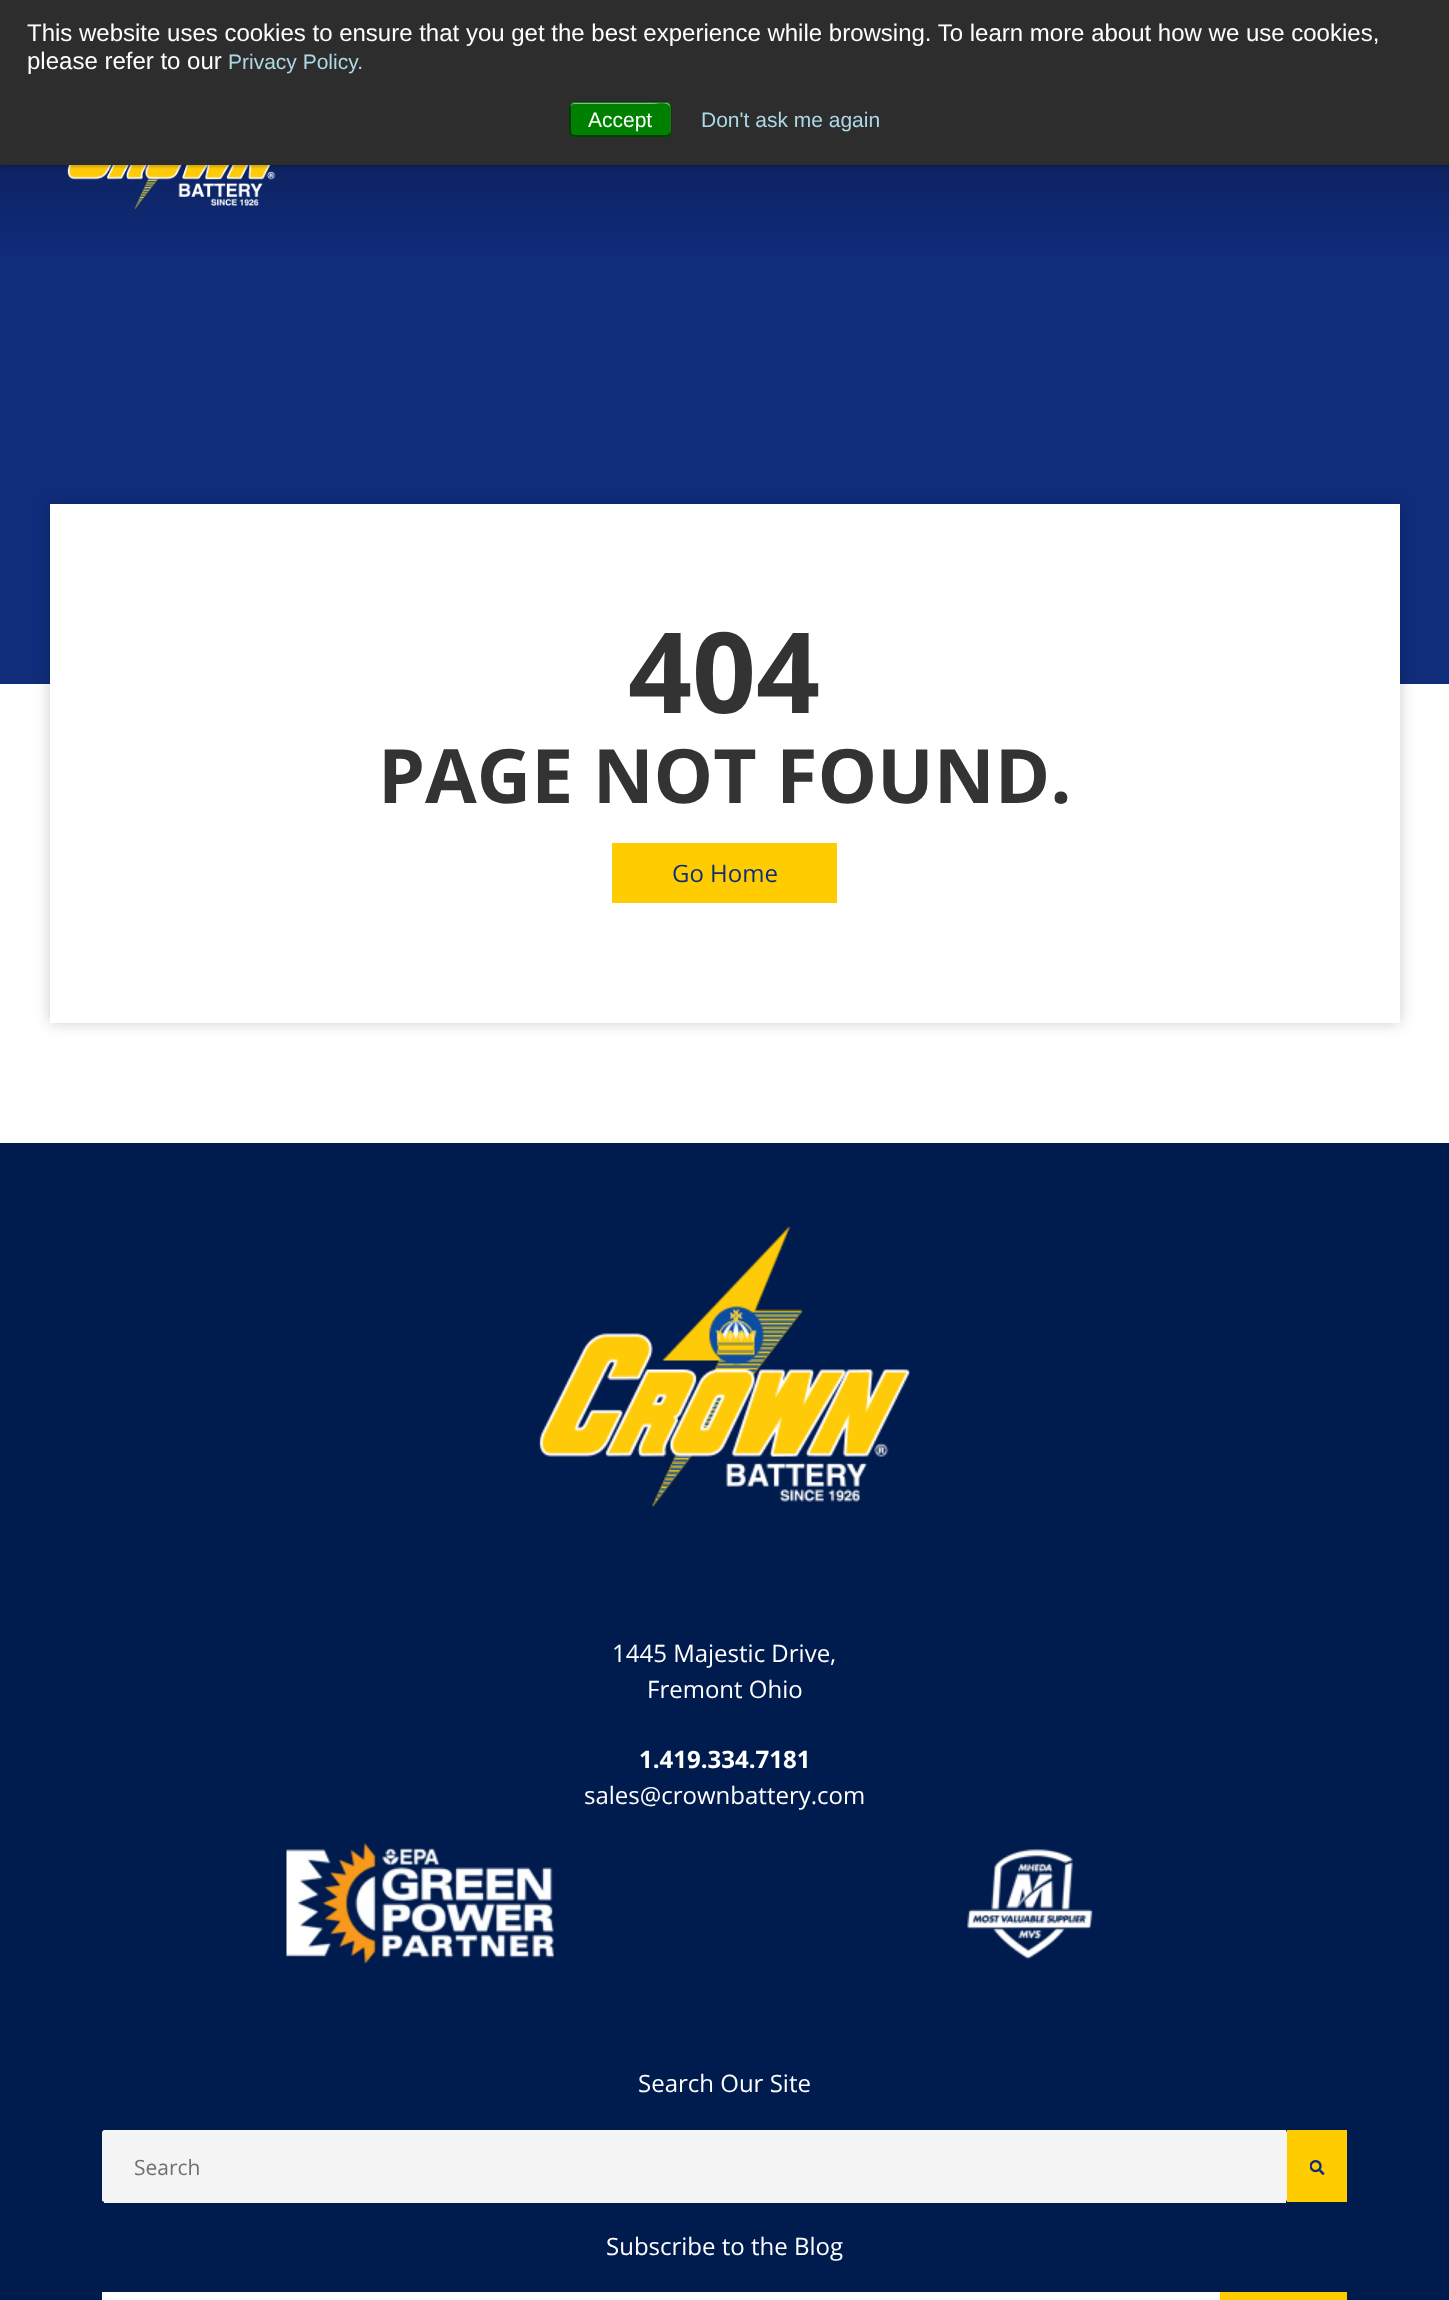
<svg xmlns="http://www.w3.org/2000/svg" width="1449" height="2300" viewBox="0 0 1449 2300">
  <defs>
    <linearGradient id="g1" gradientUnits="userSpaceOnUse" x1="725" y1="0" x2="725" y2="264"><stop offset="0.1" stop-color="rgb(8,22,62)"/><stop offset="1" stop-color="rgb(16,45,124)"/></linearGradient>
  </defs>
  <rect width="100%" height="100%" fill="rgb(255,255,255)"/>
  <rect x="0" y="165" width="1449" height="99" fill="url(#g1)"/>
  <image x="67" y="165" width="209" height="44" href="pic1.png"/>
  <rect x="0" y="2" width="1449" height="165" fill="rgba(0,0,0,0.2)" filter="blur(1.5px)"/>
  <rect x="0" y="0" width="1449" height="165" fill="rgb(45,45,45)"/>
  <g font-family="Liberation Sans" font-size="24" fill="rgb(255,255,255)">
    <text>
      <tspan x="27" y="41">This website uses cookies to ensure that you get the best experience while browsing. To learn more about how we use cookies,</tspan>
      <tspan x="27" y="69">please refer to our</tspan>
    </text>
  </g>
  <text x="228" y="69" font-family="Liberation Sans" font-size="21" fill="rgb(173,216,230)">Privacy Policy.</text>
  <rect x="569" y="101" width="103" height="36" rx="6" fill="rgb(0,128,0)"/>
  <path d="M574 104H651C657 104 668 101 670 107V133C671 132 671 131 671 130V107C671 104 669 102 666 102H575C572 102 570 104 570 107V108C570 106 572 104 574 104Z" fill="rgb(128,192,128)"/>
  <rect x="570" y="102" width="101" height="34" rx="5" fill="none" stroke="rgba(0,0,0,0.5)" stroke-width="2"/>
  <text x="588" y="127" font-family="Liberation Sans" font-size="21" fill="rgb(255,255,255)">Accept</text>
  <text x="701" y="127" font-family="Liberation Sans" font-size="21" fill="rgb(173,216,230)">Don't ask me again</text>
  <rect x="0" y="264" width="1449" height="420" fill="rgb(16,45,123)"/>
  <rect x="50" y="504" width="1350" height="519" fill="rgba(0,0,0,0.2)" filter="blur(7.5px)"/>
  <rect x="50" y="504" width="1350" height="519" fill="rgb(255,255,255)"/>
  <text x="628" y="713" font-family="Open Sans" font-size="112" font-weight="bold" fill="rgb(51,51,51)">404</text>
  <text x="378" y="803" font-family="Open Sans" font-size="75" font-weight="bold" fill="rgb(51,51,51)">PAGE NOT FOUND.</text>
  <rect x="612" y="843" width="225" height="60" fill="rgb(255,204,0)"/>
  <text x="672" y="882" font-family="Open Sans" font-size="24" fill="rgb(16,45,123)">Go Home</text>
  <rect x="0" y="1143" width="1449" height="1157" fill="rgb(0,27,77)"/>
  <image x="539" y="1226" width="371" height="281" href="pic2.png"/>
  <g font-family="Open Sans" font-size="24" fill="rgb(255,255,255)">
    <text x="612" y="1662">1445 Majestic Drive,</text>
    <text x="647" y="1698">Fremont Ohio</text>
  </g>
  <text x="639" y="1768" font-family="Open Sans" font-size="24" font-weight="bold" fill="rgb(255,255,255)">1.419.334.7181</text>
  <text x="584" y="1804" font-family="Open Sans" font-size="24" fill="rgb(255,255,255)">sales@crownbattery.com</text>
  <image x="286" y="1843" width="268" height="121" href="pic3.png"/>
  <image x="967" y="1849" width="126" height="111" href="pic4.png"/>
  <text x="638" y="2092" font-family="Open Sans" font-size="24" fill="rgb(255,255,255)">Search Our Site</text>
  <rect x="102" y="2130" width="1185" height="72" rx="3" fill="rgb(244,244,244)"/>
  <rect x="104" y="2130" width="1182" height="1" fill="rgb(244,244,244)"/>
  <rect x="104" y="2201" width="1182" height="2" fill="rgb(244,244,244)"/>
  <rect x="102" y="2132" width="1" height="69" fill="rgb(244,244,244)"/>
  <text x="134" y="2175" font-family="Open Sans" font-size="21" fill="rgb(112,112,112)">Search</text>
  <rect x="1287" y="2130" width="60" height="72" fill="rgb(255,204,0)"/>
  <image x="1310" y="2160" width="15" height="15" href="pic5.png"/>
  <text x="606" y="2255" font-family="Open Sans" font-size="24" fill="rgb(255,255,255)">Subscribe to the Blog</text>
  <rect x="102" y="2292" width="1118" height="8" fill="rgb(255,255,255)"/>
  <rect x="1220" y="2292" width="127" height="8" fill="rgb(255,204,0)"/>
</svg>
